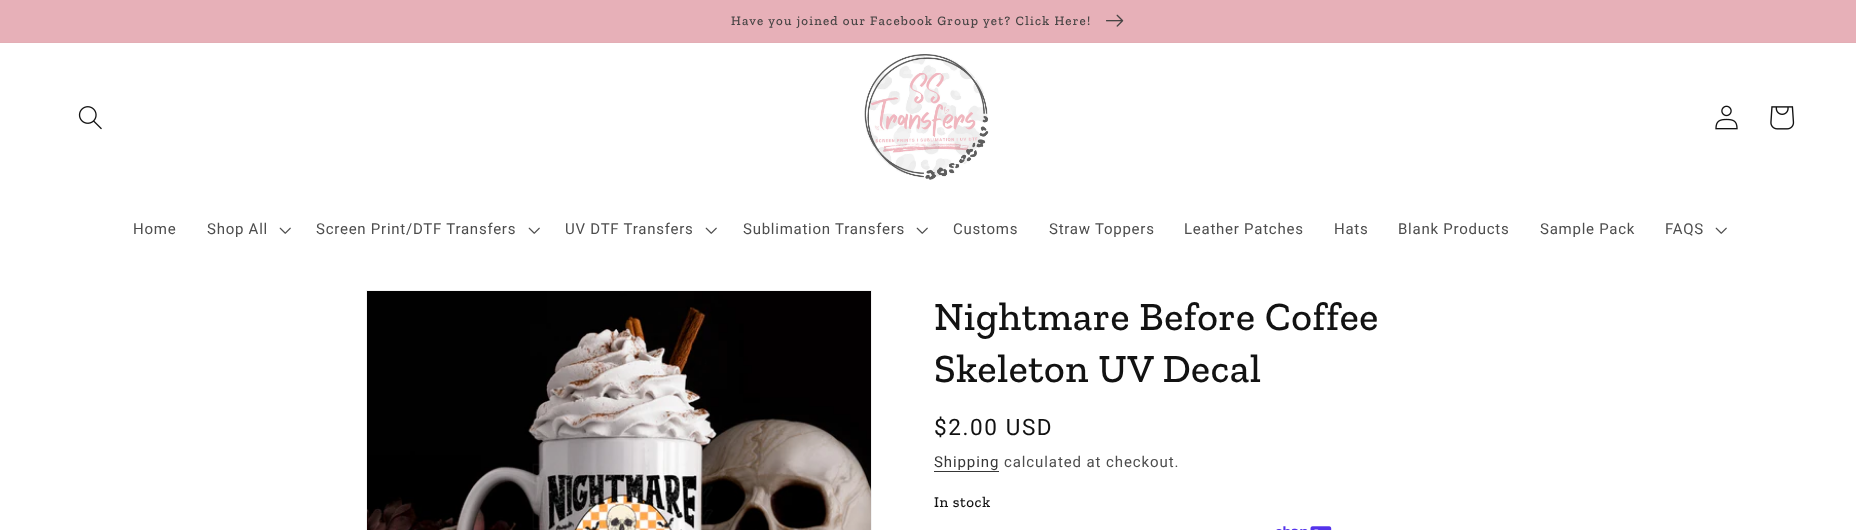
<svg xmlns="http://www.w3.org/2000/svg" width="1856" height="530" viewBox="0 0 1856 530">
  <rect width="100%" height="100%" fill="rgb(255,255,255)"/>
  <rect x="0" y="42" width="1856" height="1" fill="rgb(227,174,181)"/>
  <rect x="0" y="0" width="1856" height="42" fill="rgb(231,176,184)"/>
  <text x="731" y="25" font-family="Zilla Slab" font-size="13" font-weight="500" letter-spacing="1.25" fill="rgb(71,68,68)">Have you joined our Facebook Group yet? Click Here!</text>
  <image x="1106" y="14" width="18" height="13" href="pic1.png"/>
  <image x="78" y="106" width="24" height="24" href="pic2.png"/>
  <image x="864" y="54" width="125" height="126" href="pic3.png"/>
  <image x="1715" y="105" width="23" height="25" href="pic4.png"/>
  <image x="1770" y="106" width="25" height="24" href="pic5.png"/>
  <g font-family="Roboto" font-size="15" letter-spacing="0.75" fill="rgb(77,77,77)">
    <text x="133" y="234">Home</text>
    <text x="207" y="234">Shop All</text>
  </g>
  <image x="279" y="227" width="12" height="7" href="pic6.png"/>
  <text x="316" y="234" font-family="Roboto" font-size="15" letter-spacing="0.75" fill="rgb(77,77,77)">Screen Print/DTF Transfers</text>
  <image x="528" y="227" width="12" height="7" href="pic6.png"/>
  <text x="565" y="234" font-family="Roboto" font-size="15" letter-spacing="0.75" fill="rgb(77,77,77)">UV DTF Transfers</text>
  <image x="705" y="227" width="12" height="7" href="pic6.png"/>
  <text x="743" y="234" font-family="Roboto" font-size="15" letter-spacing="0.75" fill="rgb(77,77,77)">Sublimation Transfers</text>
  <image x="916" y="227" width="12" height="7" href="pic6.png"/>
  <g font-family="Roboto" font-size="15" letter-spacing="0.75" fill="rgb(77,77,77)">
    <text x="953" y="234">Customs</text>
    <text x="1049" y="234">Straw Toppers</text>
    <text x="1184" y="234">Leather Patches</text>
    <text x="1334" y="234">Hats</text>
    <text x="1398" y="234">Blank Products</text>
    <text x="1540" y="234">Sample Pack</text>
    <text x="1665" y="234">FAQS</text>
  </g>
  <image x="1715" y="227" width="12" height="7" href="pic6.png"/>
  <rect x="366.5" y="290.5" width="505" height="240" fill="none" stroke="rgb(243,243,243)"/>
  <image x="367" y="291" width="504" height="239" href="pic7.png"/>
  <g font-family="Zilla Slab" font-size="40" font-weight="500" letter-spacing="0.6" fill="rgb(18,18,18)">
    <text>
      <tspan x="934" y="330">Nightmare Before Coffee</tspan>
      <tspan x="934" y="382">Skeleton UV Decal</tspan>
    </text>
  </g>
  <text x="934" y="435" font-family="Roboto" font-size="22.5" letter-spacing="1.6" fill="rgb(18,18,18)">$2.00 USD</text>
  <text x="934" y="467" font-family="Roboto" font-size="15" letter-spacing="0.9" fill="rgb(54,54,54)">Shipping</text>
  <rect x="934" y="471" width="65" height="1" fill="rgb(54,54,54)"/>
  <text x="1004" y="467" font-family="Roboto" font-size="15" letter-spacing="0.9" fill="rgb(77,77,77)">calculated at checkout.</text>
  <text x="934" y="507" font-family="Zilla Slab" font-size="15" font-weight="500" letter-spacing="0.6" fill="rgb(18,18,18)">In stock</text>
  <image x="1276" y="526" width="56" height="4" href="pic8.png"/>
</svg>
